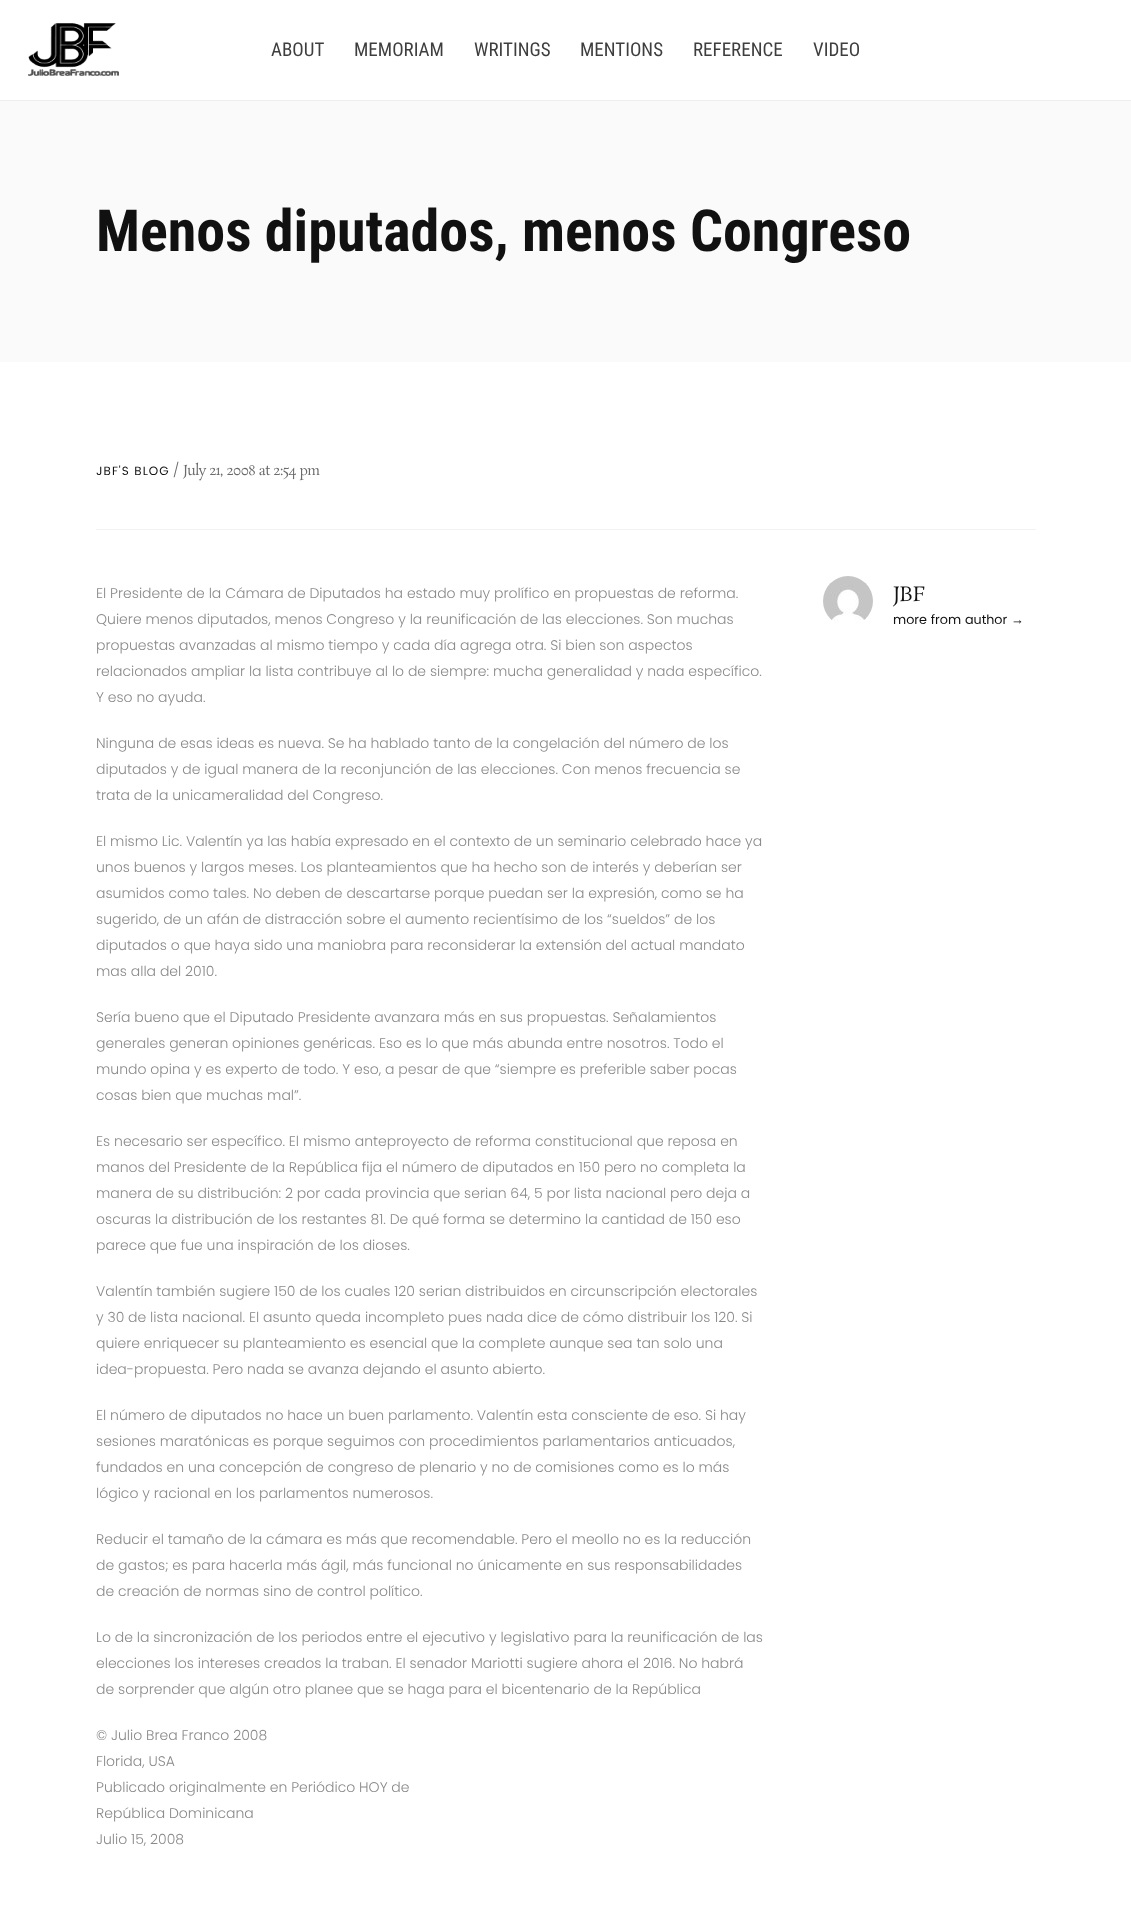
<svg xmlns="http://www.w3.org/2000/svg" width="1131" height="1924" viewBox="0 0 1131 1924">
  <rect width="100%" height="100%" fill="rgb(250,250,250)"/>
  <rect x="0" y="100" width="1131" height="1" fill="rgb(238,238,238)"/>
  <rect x="0" y="0" width="1131" height="100" fill="rgb(255,255,255)"/>
  <image x="28" y="23" width="91" height="53" href="pic1.png"/>
  <g font-family="Roboto Condensed" font-size="19" fill="rgb(62,62,62)">
    <text x="271" y="56">ABOUT</text>
    <text x="354" y="56">MEMORIAM</text>
    <text x="474" y="56">WRITINGS</text>
    <text x="580" y="56">MENTIONS</text>
    <text x="693" y="56">REFERENCE</text>
    <text x="813" y="56">VIDEO</text>
  </g>
  <text x="96" y="251" font-family="Roboto Condensed" font-size="58" font-weight="bold" fill="rgb(17,17,17)">Menos diputados, menos Congreso</text>
  <rect x="0" y="362" width="1131" height="1562" fill="rgb(255,255,255)"/>
  <rect x="96" y="529" width="940" height="1" fill="rgb(242,242,242)"/>
  <text x="96" y="475" font-family="Poppins" font-size="12" letter-spacing="1" fill="rgb(17,17,17)">JBF'S BLOG</text>
  <text x="173" y="475" font-family="Poppins" font-size="14" font-weight="300" fill="rgb(106,106,106)">/</text>
  <text x="183" y="475" font-family="Rosarivo" font-size="14" letter-spacing="-0.5" fill="rgb(106,106,106)">July 21, 2008 at 2:54 pm</text>
  <g font-family="Poppins" font-size="14" font-weight="300" fill="rgb(138,138,138)">
    <text>
      <tspan x="96" y="598">El Presidente de la Cámara de Diputados ha estado muy prolífico en propuestas de reforma.</tspan>
      <tspan x="96" y="624">Quiere menos diputados, menos Congreso y la reunificación de las elecciones. Son muchas</tspan>
      <tspan x="96" y="650">propuestas avanzadas al mismo tiempo y cada día agrega otra. Si bien son aspectos</tspan>
      <tspan x="96" y="676">relacionados ampliar la lista contribuye al lo de siempre: mucha generalidad y nada específico.</tspan>
      <tspan x="96" y="702">Y eso no ayuda.</tspan>
    </text>
    <text>
      <tspan x="96" y="748">Ninguna de esas ideas es nueva. Se ha hablado tanto de la congelación del número de los</tspan>
      <tspan x="96" y="774">diputados y de igual manera de la reconjunción de las elecciones. Con menos frecuencia se</tspan>
      <tspan x="96" y="800">trata de la unicameralidad del Congreso.</tspan>
    </text>
    <text>
      <tspan x="96" y="846">El mismo Lic. Valentín ya las había expresado en el contexto de un seminario celebrado hace ya</tspan>
      <tspan x="96" y="872">unos buenos y largos meses. Los planteamientos que ha hecho son de interés y deberían ser</tspan>
      <tspan x="96" y="898">asumidos como tales. No deben de descartarse porque puedan ser la expresión, como se ha</tspan>
      <tspan x="96" y="924">sugerido, de un afán de distracción sobre el aumento recientísimo de los “sueldos” de los</tspan>
      <tspan x="96" y="950">diputados o que haya sido una maniobra para reconsiderar la extensión del actual mandato</tspan>
      <tspan x="96" y="976">mas alla del 2010.</tspan>
    </text>
    <text>
      <tspan x="96" y="1022">Sería bueno que el Diputado Presidente avanzara más en sus propuestas. Señalamientos</tspan>
      <tspan x="96" y="1048">generales generan opiniones genéricas. Eso es lo que más abunda entre nosotros. Todo el</tspan>
      <tspan x="96" y="1074">mundo opina y es experto de todo. Y eso, a pesar de que “siempre es preferible saber pocas</tspan>
      <tspan x="96" y="1100">cosas bien que muchas mal”.</tspan>
    </text>
    <text>
      <tspan x="96" y="1146">Es necesario ser específico. El mismo anteproyecto de reforma constitucional que reposa en</tspan>
      <tspan x="96" y="1172">manos del Presidente de la República fija el número de diputados en 150 pero no completa la</tspan>
      <tspan x="96" y="1198">manera de su distribución: 2 por cada provincia que serian 64, 5 por lista nacional pero deja a</tspan>
      <tspan x="96" y="1224">oscuras la distribución de los restantes 81. De qué forma se determino la cantidad de 150 eso</tspan>
      <tspan x="96" y="1250">parece que fue una inspiración de los dioses.</tspan>
    </text>
    <text>
      <tspan x="96" y="1296">Valentín también sugiere 150 de los cuales 120 serian distribuidos en circunscripción electorales</tspan>
      <tspan x="96" y="1322">y 30 de lista nacional. El asunto queda incompleto pues nada dice de cómo distribuir los 120. Si</tspan>
      <tspan x="96" y="1348">quiere enriquecer su planteamiento es esencial que la complete aunque sea tan solo una</tspan>
      <tspan x="96" y="1374">idea-propuesta. Pero nada se avanza dejando el asunto abierto.</tspan>
    </text>
    <text>
      <tspan x="96" y="1420">El número de diputados no hace un buen parlamento. Valentín esta consciente de eso. Si hay</tspan>
      <tspan x="96" y="1446">sesiones maratónicas es porque seguimos con procedimientos parlamentarios anticuados,</tspan>
      <tspan x="96" y="1472">fundados en una concepción de congreso de plenario y no de comisiones como es lo más</tspan>
      <tspan x="96" y="1498">lógico y racional en los parlamentos numerosos.</tspan>
    </text>
    <text>
      <tspan x="96" y="1544">Reducir el tamaño de la cámara es más que recomendable. Pero el meollo no es la reducción</tspan>
      <tspan x="96" y="1570">de gastos; es para hacerla más ágil, más funcional no únicamente en sus responsabilidades</tspan>
      <tspan x="96" y="1596">de creación de normas sino de control político.</tspan>
    </text>
    <text>
      <tspan x="96" y="1642">Lo de la sincronización de los periodos entre el ejecutivo y legislativo para la reunificación de las</tspan>
      <tspan x="96" y="1668">elecciones los intereses creados la traban. El senador Mariotti sugiere ahora el 2016. No habrá</tspan>
      <tspan x="96" y="1694">de sorprender que algún otro planee que se haga para el bicentenario de la República</tspan>
    </text>
    <text>
      <tspan x="96" y="1740">© Julio Brea Franco 2008</tspan>
      <tspan x="96" y="1766">Florida, USA</tspan>
      <tspan x="96" y="1792">Publicado originalmente en Periódico HOY de</tspan>
      <tspan x="96" y="1818">República Dominicana</tspan>
      <tspan x="96" y="1844">Julio 15, 2008</tspan>
    </text>
  </g>
  <image x="823" y="576" width="50" height="47" href="pic2.png"/>
  <text x="893" y="601" font-family="Rosarivo" font-size="20" letter-spacing="-0.5" fill="rgb(17,17,17)">JBF</text>
  <text x="893" y="624" font-family="Poppins" font-size="12.9" fill="rgb(17,17,17)">more from author</text>
  <text x="1011" y="624" font-family="Liberation Sans" font-size="12.9" fill="rgb(17,17,17)">→</text>
</svg>
